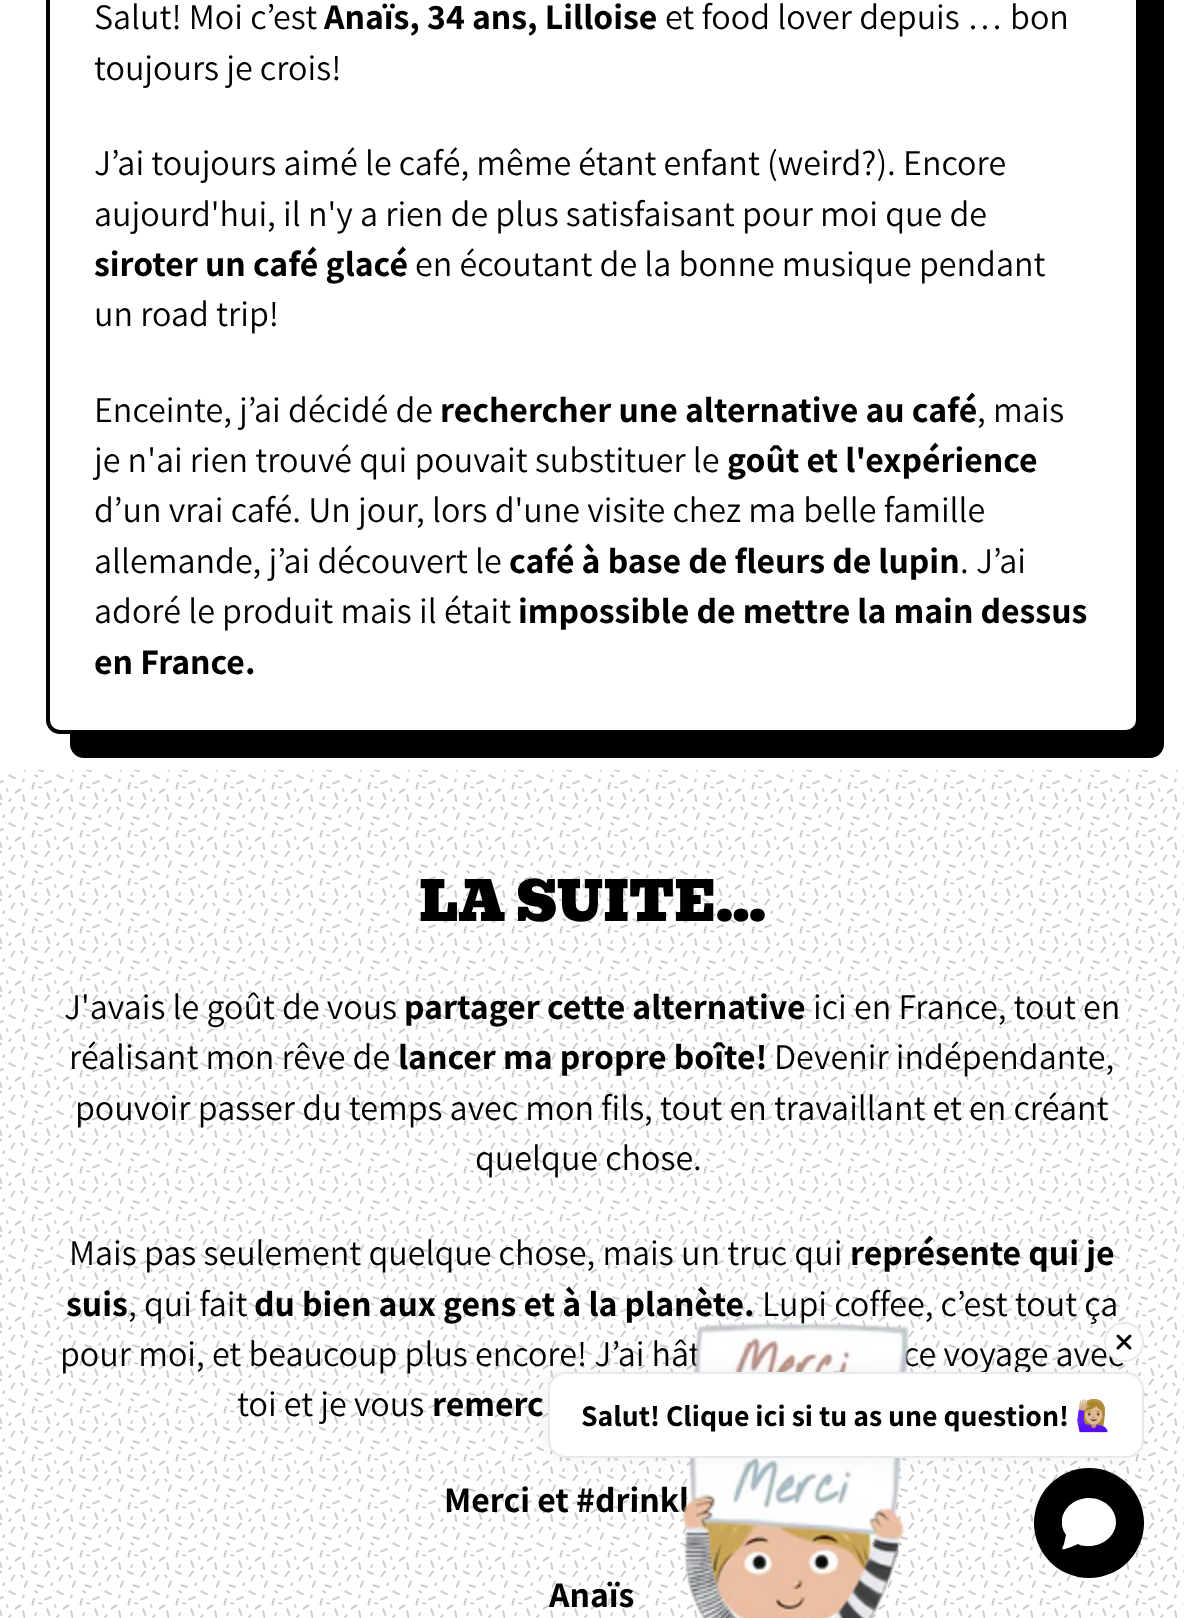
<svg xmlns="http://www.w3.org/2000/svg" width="1184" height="1618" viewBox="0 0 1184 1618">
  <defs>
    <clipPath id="clip1"><rect x="1062" y="1496" width="54" height="54"/></clipPath>
  </defs>
  <rect width="100%" height="100%" fill="rgb(255,255,255)"/>
  <rect x="72" y="-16" width="1090" height="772" rx="12" fill="rgb(0,0,0)" stroke="rgb(0,0,0)" stroke-width="4"/>
  <rect x="48" y="-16" width="1090" height="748" rx="12" fill="rgb(255,255,255)" stroke="rgb(0,0,0)" stroke-width="4"/>
  <text x="94" y="29" font-family="Assistant" font-size="36" fill="rgb(0,0,0)">Salut! Moi c’est</text>
  <text x="324" y="29" font-family="Assistant" font-size="36" font-weight="bold" fill="rgb(0,0,0)">Anaïs, 34 ans, Lilloise</text>
  <g font-family="Assistant" font-size="36" fill="rgb(0,0,0)">
    <text x="665" y="29">et food lover depuis … bon</text>
    <text x="94" y="80">toujours je crois!</text>
    <text>
      <tspan x="94" y="175">J’ai toujours aimé le café, même étant enfant (weird?). Encore</tspan>
      <tspan x="94" y="226">aujourd'hui, il n'y a rien de plus satisfaisant pour moi que de</tspan>
    </text>
  </g>
  <text x="94" y="276" font-family="Assistant" font-size="36" font-weight="bold" fill="rgb(0,0,0)">siroter un café glacé</text>
  <g font-family="Assistant" font-size="36" fill="rgb(0,0,0)">
    <text x="415" y="276">en écoutant de la bonne musique pendant</text>
    <text x="94" y="326">un road trip!</text>
    <text x="94" y="422">Enceinte, j’ai décidé de</text>
  </g>
  <text x="440" y="422" font-family="Assistant" font-size="36" font-weight="bold" fill="rgb(0,0,0)">rechercher une alternative au café</text>
  <g font-family="Assistant" font-size="36" fill="rgb(0,0,0)">
    <text x="977" y="422">, mais</text>
    <text x="94" y="472">je n'ai rien trouvé qui pouvait substituer le</text>
  </g>
  <text x="727" y="472" font-family="Assistant" font-size="36" font-weight="bold" fill="rgb(0,0,0)">goût et l'expérience</text>
  <g font-family="Assistant" font-size="36" fill="rgb(0,0,0)">
    <text>
      <tspan x="94" y="522">d’un vrai café. Un jour, lors d'une visite chez ma belle famille</tspan>
      <tspan x="94" y="573">allemande, j’ai découvert le</tspan>
    </text>
  </g>
  <text x="509" y="573" font-family="Assistant" font-size="36" font-weight="bold" fill="rgb(0,0,0)">café à base de fleurs de lupin</text>
  <g font-family="Assistant" font-size="36" fill="rgb(0,0,0)">
    <text x="960" y="573">. J’ai</text>
    <text x="94" y="623">adoré le produit mais il était</text>
  </g>
  <g font-family="Assistant" font-size="36" font-weight="bold" fill="rgb(0,0,0)">
    <text x="518" y="623">impossible de mettre la main dessus</text>
    <text x="94" y="674">en France.</text>
  </g>
  <image x="0" y="770" width="1184" height="848" href="pic1.png"/>
  <text x="419" y="921" font-family="Bevan" font-size="54" fill="rgb(0,0,0)">LA SUITE...</text>
  <text x="64" y="1019" font-family="Assistant" font-size="36" fill="rgb(0,0,0)">J'avais le goût de vous</text>
  <text x="404" y="1019" font-family="Assistant" font-size="36" font-weight="bold" fill="rgb(0,0,0)">partager cette alternative</text>
  <g font-family="Assistant" font-size="36" fill="rgb(0,0,0)">
    <text x="813" y="1019">ici en France, tout en</text>
    <text x="69" y="1069">réalisant mon rêve de</text>
  </g>
  <text x="398" y="1069" font-family="Assistant" font-size="36" font-weight="bold" fill="rgb(0,0,0)">lancer ma propre boîte!</text>
  <g font-family="Assistant" font-size="36" fill="rgb(0,0,0)">
    <text x="774" y="1069">Devenir indépendante,</text>
    <text x="75" y="1120">pouvoir passer du temps avec mon fils, tout en travaillant et en créant</text>
    <text x="475" y="1170">quelque chose.</text>
    <text x="69" y="1265">Mais pas seulement quelque chose, mais un truc qui</text>
  </g>
  <g font-family="Assistant" font-size="36" font-weight="bold" fill="rgb(0,0,0)">
    <text x="850" y="1265">représente qui je</text>
    <text x="66" y="1316">suis</text>
  </g>
  <text x="128" y="1316" font-family="Assistant" font-size="36" fill="rgb(0,0,0)">, qui fait</text>
  <text x="254" y="1316" font-family="Assistant" font-size="36" font-weight="bold" fill="rgb(0,0,0)">du bien aux gens et à la planète.</text>
  <g font-family="Assistant" font-size="36" fill="rgb(0,0,0)">
    <text x="762" y="1316">Lupi coffee, c’est tout ça</text>
    <text x="60" y="1366">pour moi, et beaucoup plus encore! J’ai hât</text>
    <text x="903" y="1366">ce voyage avec</text>
    <text x="237" y="1416">toi et je vous</text>
  </g>
  <g font-family="Assistant" font-size="36" font-weight="bold" fill="rgb(0,0,0)">
    <text x="432" y="1416">remerc</text>
    <text x="444" y="1512">Merci et #drinkl</text>
    <text x="549" y="1607">Anaïs</text>
  </g>
  <image x="681" y="1322" width="228" height="296" href="pic2.png"/>
  <circle cx="1089" cy="1523" r="55" fill="rgb(0,0,0)"/>
  <rect x="544" y="1372" width="596" height="86" rx="18" fill="rgba(0,0,0,0.05)" filter="blur(10px)"/>
  <circle cx="1124" cy="1342" r="19" fill="rgb(255,255,255)" stroke="rgb(230,233,238)" stroke-width="2"/>
  <path d="M1118 1348L1130 1336M1118 1336L1130 1348" fill="none" stroke="rgb(0,0,0)" stroke-width="3" stroke-linecap="round" stroke-linejoin="round"/>
  <rect x="549" y="1373" width="594" height="84" rx="17" fill="rgb(255,255,255)" stroke="rgb(230,233,238)" stroke-width="2"/>
  <text x="581" y="1426" font-family="Assistant" font-size="30" font-weight="bold" fill="rgb(0,0,0)">Salut! Clique ici si tu as une question!</text>
  <text x="1075" y="1426" font-family="Noto Color Emoji" font-size="30" font-weight="bold" fill="rgb(0,0,0)">🙋🏼‍♀️</text>
  <g clip-path="url(#clip1)">
    <path d="M1089 1498C1069 1498 1054 1518 1066 1535L1064 1544C1063 1547 1060 1550 1065 1549L1071 1547L1078 1544C1081 1546 1085 1546 1089 1546C1104 1546 1116 1535 1116 1522C1116 1509 1104 1498 1089 1498Z" fill="rgb(255,255,255)"/>
  </g>
</svg>
